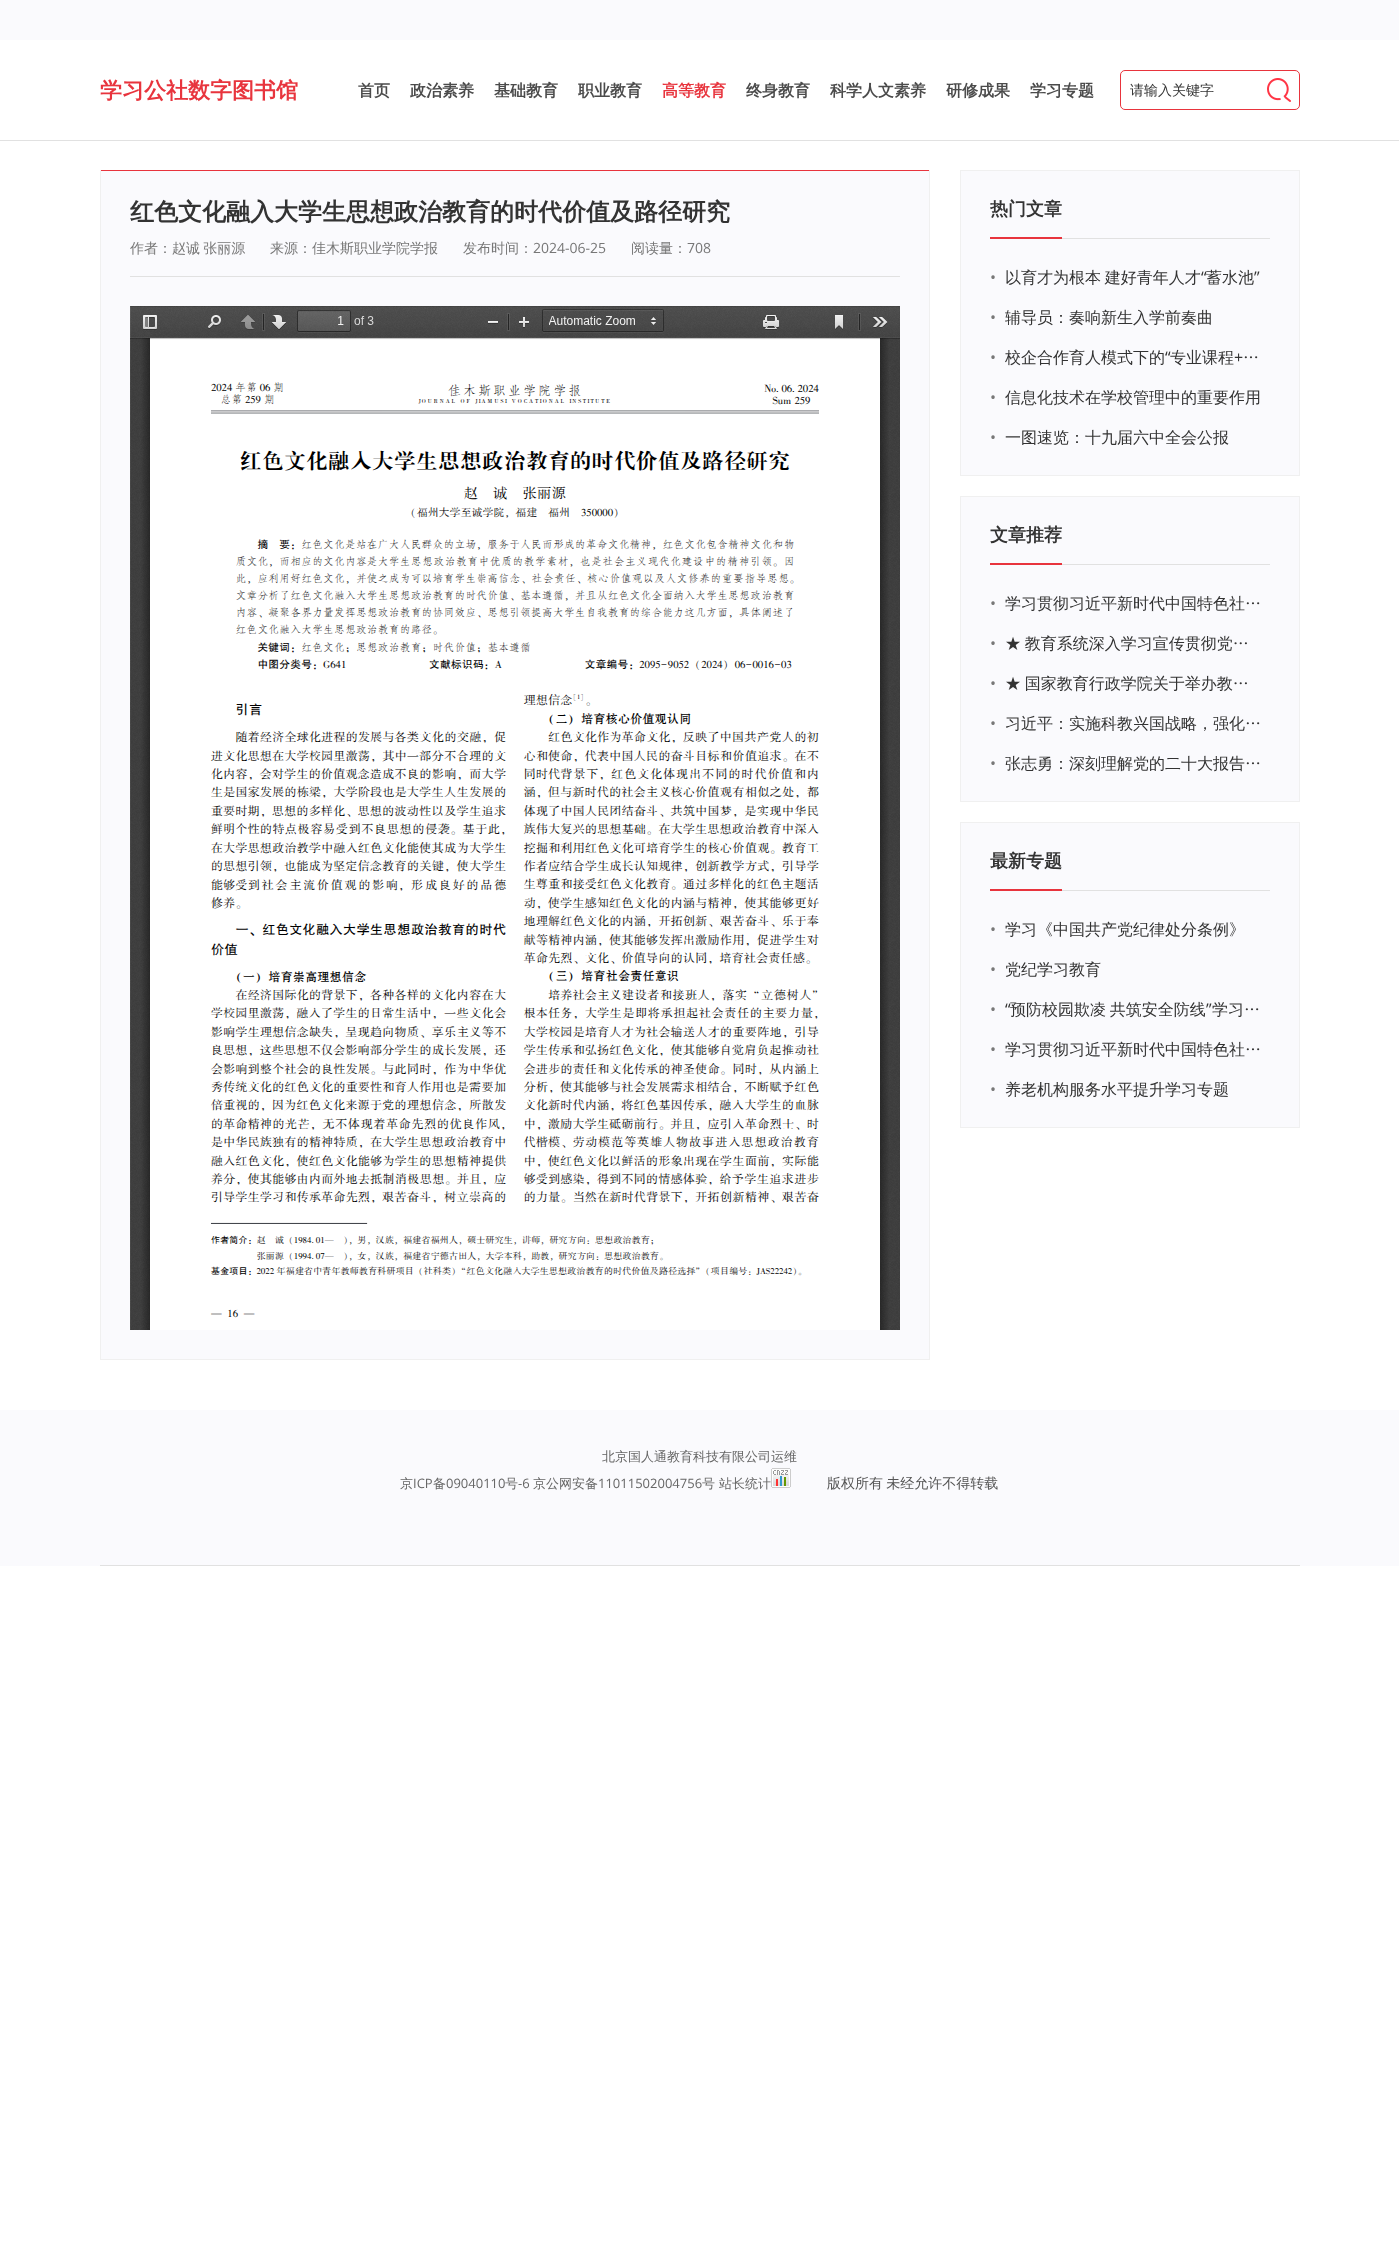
<svg xmlns="http://www.w3.org/2000/svg" width="1399" height="2268" viewBox="0 0 1399 2268">
  <defs>
    <clipPath id="clip1"><rect x="1005" y="297" width="260" height="40"/></clipPath>
  </defs>
  <rect width="100%" height="100%" fill="rgb(255,255,255)"/>
  <rect x="0" y="0" width="1399" height="40" fill="rgb(250,250,253)"/>
  <text x="100" y="98" font-family="WenQuanYi Zen Hei" font-size="22" font-weight="bold" fill="rgb(232,52,61)">学习公社数字图书馆</text>
  <g font-family="WenQuanYi Zen Hei" font-size="16" font-weight="bold" fill="rgb(75,75,75)">
    <text x="358" y="96">首页</text>
    <text x="410" y="96">政治素养</text>
    <text x="494" y="96">基础教育</text>
    <text x="578" y="96">职业教育</text>
  </g>
  <text x="662" y="96" font-family="WenQuanYi Zen Hei" font-size="16" font-weight="bold" fill="rgb(232,52,61)">高等教育</text>
  <g font-family="WenQuanYi Zen Hei" font-size="16" font-weight="bold" fill="rgb(75,75,75)">
    <text x="746" y="96">终身教育</text>
    <text x="830" y="96">科学人文素养</text>
    <text x="946" y="96">研修成果</text>
    <text x="1030" y="96">学习专题</text>
  </g>
  <rect x="1120.5" y="70.5" width="179" height="39" rx="4.5" fill="none" stroke="rgb(232,52,61)"/>
  <text x="1130" y="95" font-family="WenQuanYi Zen Hei" font-size="14" font-weight="500" fill="rgb(51,51,51)">请输入关键字</text>
  <image x="1267" y="78" width="24" height="24" href="pic1.png"/>
  <rect x="0" y="140" width="1399" height="1" fill="rgb(225,225,225)"/>
  <rect x="101" y="171" width="828" height="1188" fill="rgb(250,250,253)"/>
  <rect x="100" y="170" width="830" height="1" fill="rgb(232,52,61)"/>
  <rect x="929" y="170" width="1" height="1190" fill="rgb(240,240,240)"/>
  <rect x="100" y="1359" width="830" height="1" fill="rgb(240,240,240)"/>
  <rect x="100" y="170" width="1" height="1190" fill="rgb(240,240,240)"/>
  <text x="130" y="220" font-family="WenQuanYi Zen Hei" font-size="24" font-weight="bold" fill="rgb(51,51,51)">红色文化融入大学生思想政治教育的时代价值及路径研究</text>
  <rect x="130" y="276" width="770" height="1" fill="rgb(225,225,225)"/>
  <g font-family="WenQuanYi Zen Hei" font-size="14" font-weight="500" fill="rgb(119,119,119)">
    <text x="130" y="253" word-spacing="-1">作者：赵诚 张丽源</text>
    <text x="270" y="253">来源：佳木斯职业学院学报</text>
    <text x="463" y="253">发布时间：</text>
  </g>
  <text x="533" y="253" font-family="Open Sans" font-size="14" fill="rgb(119,119,119)">2024-06-25</text>
  <text x="631" y="253" font-family="WenQuanYi Zen Hei" font-size="14" font-weight="500" fill="rgb(119,119,119)">阅读量：</text>
  <text x="687" y="253" font-family="Open Sans" font-size="14" fill="rgb(119,119,119)">708</text>
  <image x="130" y="306" width="770" height="1024" href="pic2.png"/>
  <rect x="960.5" y="170.5" width="339" height="305" fill="rgb(250,250,253)" stroke="rgb(240,240,240)"/>
  <rect x="1062" y="238" width="208" height="1" fill="rgb(225,225,225)"/>
  <rect x="990" y="237" width="72" height="2" fill="rgb(232,52,61)"/>
  <text x="990" y="215" font-family="WenQuanYi Zen Hei" font-size="18" font-weight="bold" fill="rgb(51,51,51)">热门文章</text>
  <text x="990" y="283" font-family="Open Sans" font-size="16" fill="rgb(119,119,119)">•</text>
  <text x="1005" y="283" word-spacing="-1" font-family="WenQuanYi Zen Hei" font-size="16" font-weight="500" fill="rgb(51,51,51)">以育才为根本 建好青年人才</text>
  <text x="1201" y="283" font-family="Open Sans" font-size="16" fill="rgb(51,51,51)">“</text>
  <text x="1206" y="283" font-family="WenQuanYi Zen Hei" font-size="16" font-weight="500" fill="rgb(51,51,51)">蓄水池</text>
  <text x="1254" y="283" font-family="Open Sans" font-size="16" fill="rgb(51,51,51)">”</text>
  <text x="990" y="323" font-family="Open Sans" font-size="16" fill="rgb(119,119,119)">•</text>
  <g clip-path="url(#clip1)">
    <text x="1005" y="323" font-family="WenQuanYi Zen Hei" font-size="16" font-weight="500" fill="rgb(51,51,51)">辅导员：奏响新生入学前奏曲</text>
  </g>
  <text x="990" y="363" font-family="Open Sans" font-size="16" fill="rgb(119,119,119)">•</text>
  <text x="1005" y="363" font-family="WenQuanYi Zen Hei" font-size="16" font-weight="500" fill="rgb(51,51,51)">校企合作育人模式下的</text>
  <text x="1165" y="363" font-family="Open Sans" font-size="16" fill="rgb(51,51,51)">“</text>
  <text x="1170" y="363" font-family="WenQuanYi Zen Hei" font-size="16" font-weight="500" fill="rgb(51,51,51)">专业课程</text>
  <text x="1234" y="363" font-family="Open Sans" font-size="16" fill="rgb(51,51,51)">+</text>
  <text x="1243" y="363" font-family="WenQuanYi Zen Hei" font-size="16" font-weight="500" fill="rgb(51,51,51)">…</text>
  <text x="990" y="403" font-family="Open Sans" font-size="16" fill="rgb(119,119,119)">•</text>
  <text x="1005" y="403" font-family="WenQuanYi Zen Hei" font-size="16" font-weight="500" fill="rgb(51,51,51)">信息化技术在学校管理中的重要作用</text>
  <text x="990" y="443" font-family="Open Sans" font-size="16" fill="rgb(119,119,119)">•</text>
  <text x="1005" y="443" font-family="WenQuanYi Zen Hei" font-size="16" font-weight="500" fill="rgb(51,51,51)">一图速览：十九届六中全会公报</text>
  <rect x="960.5" y="496.5" width="339" height="305" fill="rgb(250,250,253)" stroke="rgb(240,240,240)"/>
  <rect x="1062" y="564" width="208" height="1" fill="rgb(225,225,225)"/>
  <rect x="990" y="563" width="72" height="2" fill="rgb(232,52,61)"/>
  <text x="990" y="541" font-family="WenQuanYi Zen Hei" font-size="18" font-weight="bold" fill="rgb(51,51,51)">文章推荐</text>
  <text x="990" y="609" font-family="Open Sans" font-size="16" fill="rgb(119,119,119)">•</text>
  <text x="1005" y="609" font-family="WenQuanYi Zen Hei" font-size="16" font-weight="500" fill="rgb(51,51,51)">学习贯彻习近平新时代中国特色社…</text>
  <text x="990" y="649" font-family="Open Sans" font-size="16" fill="rgb(119,119,119)">•</text>
  <text x="1005" y="649" word-spacing="-1" font-family="WenQuanYi Zen Hei" font-size="16" font-weight="500" fill="rgb(51,51,51)">★ 教育系统深入学习宣传贯彻党…</text>
  <text x="990" y="689" font-family="Open Sans" font-size="16" fill="rgb(119,119,119)">•</text>
  <text x="1005" y="689" word-spacing="-1" font-family="WenQuanYi Zen Hei" font-size="16" font-weight="500" fill="rgb(51,51,51)">★ 国家教育行政学院关于举办教…</text>
  <text x="990" y="729" font-family="Open Sans" font-size="16" fill="rgb(119,119,119)">•</text>
  <text x="1005" y="729" font-family="WenQuanYi Zen Hei" font-size="16" font-weight="500" fill="rgb(51,51,51)">习近平：实施科教兴国战略，强化…</text>
  <text x="990" y="769" font-family="Open Sans" font-size="16" fill="rgb(119,119,119)">•</text>
  <text x="1005" y="769" font-family="WenQuanYi Zen Hei" font-size="16" font-weight="500" fill="rgb(51,51,51)">张志勇：深刻理解党的二十大报告…</text>
  <rect x="960.5" y="822.5" width="339" height="305" fill="rgb(250,250,253)" stroke="rgb(240,240,240)"/>
  <rect x="1062" y="890" width="208" height="1" fill="rgb(225,225,225)"/>
  <rect x="990" y="889" width="72" height="2" fill="rgb(232,52,61)"/>
  <text x="990" y="867" font-family="WenQuanYi Zen Hei" font-size="18" font-weight="bold" fill="rgb(51,51,51)">最新专题</text>
  <text x="990" y="935" font-family="Open Sans" font-size="16" fill="rgb(119,119,119)">•</text>
  <text x="1005" y="935" font-family="WenQuanYi Zen Hei" font-size="16" font-weight="500" fill="rgb(51,51,51)">学习《中国共产党纪律处分条例》</text>
  <text x="990" y="975" font-family="Open Sans" font-size="16" fill="rgb(119,119,119)">•</text>
  <text x="1005" y="975" font-family="WenQuanYi Zen Hei" font-size="16" font-weight="500" fill="rgb(51,51,51)">党纪学习教育</text>
  <text x="990" y="1015" font-family="Open Sans" font-size="16" fill="rgb(119,119,119)">•</text>
  <text x="1005" y="1015" font-family="Open Sans" font-size="16" fill="rgb(51,51,51)">“</text>
  <text x="1010" y="1015" word-spacing="-1" font-family="WenQuanYi Zen Hei" font-size="16" font-weight="500" fill="rgb(51,51,51)">预防校园欺凌 共筑安全防线</text>
  <text x="1206" y="1015" font-family="Open Sans" font-size="16" fill="rgb(51,51,51)">”</text>
  <text x="1212" y="1015" font-family="WenQuanYi Zen Hei" font-size="16" font-weight="500" fill="rgb(51,51,51)">学习…</text>
  <text x="990" y="1055" font-family="Open Sans" font-size="16" fill="rgb(119,119,119)">•</text>
  <text x="1005" y="1055" font-family="WenQuanYi Zen Hei" font-size="16" font-weight="500" fill="rgb(51,51,51)">学习贯彻习近平新时代中国特色社…</text>
  <text x="990" y="1095" font-family="Open Sans" font-size="16" fill="rgb(119,119,119)">•</text>
  <text x="1005" y="1095" font-family="WenQuanYi Zen Hei" font-size="16" font-weight="500" fill="rgb(51,51,51)">养老机构服务水平提升学习专题</text>
  <rect x="0" y="1410" width="1399" height="156" fill="rgb(250,250,253)"/>
  <rect x="100" y="1565" width="1200" height="1" fill="rgb(225,225,225)"/>
  <g font-family="WenQuanYi Zen Hei" font-size="13" font-weight="500" fill="rgb(102,102,102)">
    <text x="602" y="1461">北京国人通教育科技有限公司运维</text>
    <text x="400" y="1488">京</text>
  </g>
  <text x="413" y="1488" font-family="Open Sans" font-size="13" fill="rgb(102,102,102)">ICP</text>
  <text x="433" y="1488" font-family="WenQuanYi Zen Hei" font-size="13" font-weight="500" fill="rgb(102,102,102)">备</text>
  <text x="446" y="1488" font-family="Open Sans" font-size="13" fill="rgb(102,102,102)">09040110</text>
  <text x="505" y="1488" font-family="WenQuanYi Zen Hei" font-size="13" font-weight="500" fill="rgb(102,102,102)">号</text>
  <text x="518" y="1488" font-family="Open Sans" font-size="13" fill="rgb(102,102,102)">-6</text>
  <text x="533" y="1488" font-family="WenQuanYi Zen Hei" font-size="13" font-weight="500" fill="rgb(102,102,102)">京公网安备</text>
  <text x="598" y="1488" font-family="Open Sans" font-size="13" fill="rgb(102,102,102)">11011502004756</text>
  <text x="702" y="1488" font-family="WenQuanYi Zen Hei" font-size="13" font-weight="500" fill="rgb(102,102,102)">号 站长统计</text>
  <image x="771" y="1468" width="20" height="20" href="pic3.png"/>
  <text x="827" y="1488" word-spacing="-1" font-family="WenQuanYi Zen Hei" font-size="14" font-weight="500" fill="rgb(85,85,85)">版权所有 未经允许不得转载</text>
</svg>
